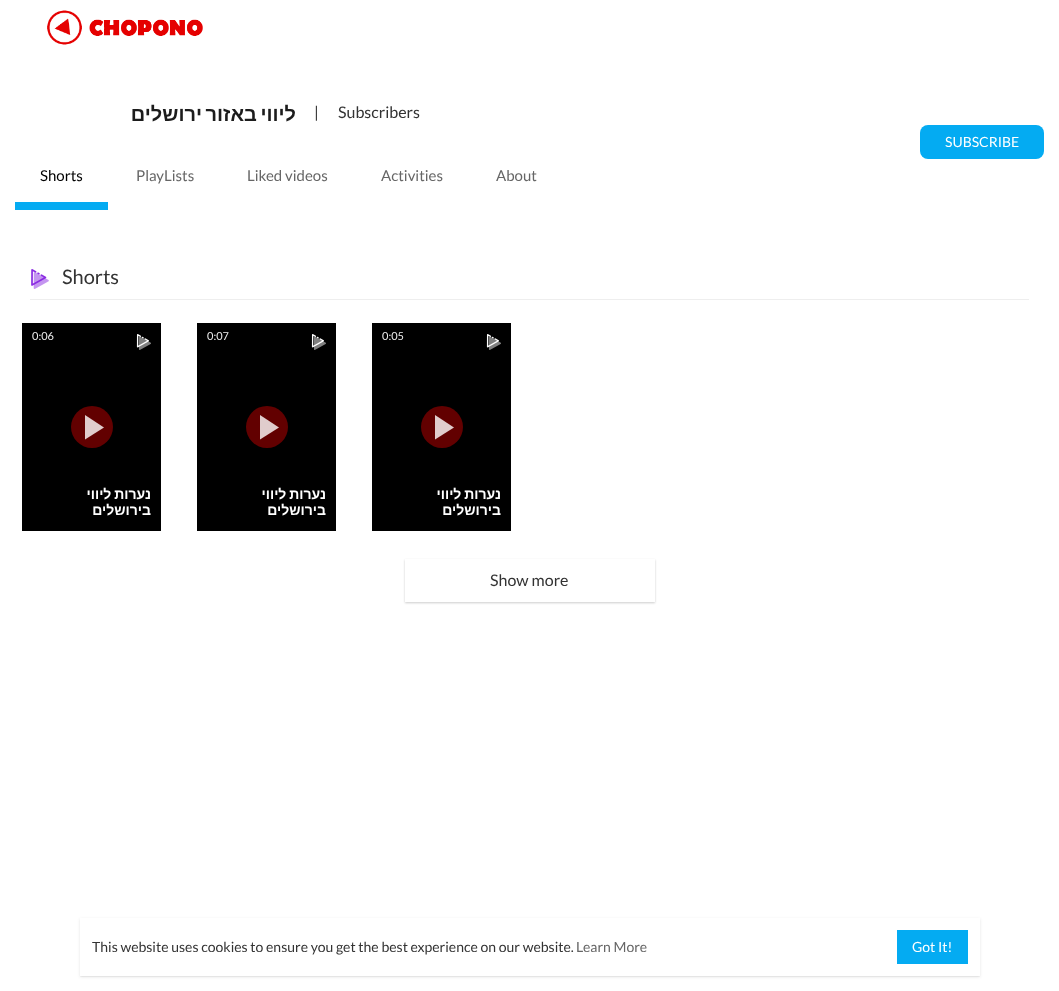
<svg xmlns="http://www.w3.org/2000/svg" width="1059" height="991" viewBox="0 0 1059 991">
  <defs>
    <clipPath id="clip1"><rect x="32" y="478" width="119" height="38"/></clipPath>
    <clipPath id="clip2"><rect x="207" y="478" width="119" height="38"/></clipPath>
    <clipPath id="clip3"><rect x="382" y="478" width="119" height="38"/></clipPath>
    <clipPath id="clip4"><path d="M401 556H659V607H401ZM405 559H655V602H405Z" clip-rule="evenodd"/></clipPath>
    <clipPath id="clip5"><rect x="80" y="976" width="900" height="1"/></clipPath>
    <clipPath id="clip6"><path d="M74 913H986V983H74ZM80 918H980V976H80Z" clip-rule="evenodd"/></clipPath>
  </defs>
  <rect width="100%" height="100%" fill="rgb(255,255,255)"/>
  <image x="47" y="10" width="35" height="35" href="pic1.png"/>
  <image x="89" y="19" width="114" height="17" href="pic2.png"/>
  <text x="296" y="121" word-spacing="-2" font-family="Liberation Sans" font-size="20" font-weight="bold" direction="rtl" fill="rgb(28,28,28)">ליווי באזור ירושלים</text>
  <g font-family="Lato" font-size="16" fill="rgb(51,51,51)">
    <text x="314" y="118">|</text>
    <text x="338" y="118">Subscribers</text>
  </g>
  <rect x="920" y="125" width="124" height="34" rx="8" fill="rgb(4,171,242)"/>
  <text x="945" y="147" font-family="Lato" font-size="14" fill="rgb(255,255,255)">SUBSCRIBE</text>
  <text x="40" y="181" font-family="Lato" font-size="15" fill="rgb(0,0,0)">Shorts</text>
  <rect x="15" y="202" width="93" height="8" fill="rgb(4,171,242)"/>
  <g font-family="Lato" font-size="15" fill="rgb(102,102,102)">
    <text x="136" y="181">PlayLists</text>
    <text x="247" y="181">Liked videos</text>
    <text x="381" y="181">Activities</text>
    <text x="496" y="181">About</text>
  </g>
  <rect x="30" y="299" width="999" height="1" fill="rgb(238,238,238)"/>
  <image x="31" y="269" width="18" height="20" href="pic3.png"/>
  <text x="62" y="284" font-family="Lato" font-size="20" fill="rgb(51,51,51)">Shorts</text>
  <rect x="22" y="323" width="139" height="208" fill="rgb(0,0,0)"/>
  <text x="32" y="340" font-family="Lato" font-size="11" fill="rgb(237,237,237)">0:06</text>
  <image x="136" y="334" width="15" height="16" href="pic4.png"/>
  <circle cx="92" cy="427" r="21" fill="rgb(98,0,0)"/>
  <path d="M85 415V439.5L104 427.5Z" fill="rgb(224,204,204)"/>
  <g clip-path="url(#clip1)">
    <text x="151" y="499" word-spacing="-1" font-family="Liberation Sans" font-size="14" font-weight="bold" direction="rtl" fill="rgb(255,255,255)">נערות ליווי</text>
  </g>
  <text x="151" y="515" font-family="Liberation Sans" font-size="14" font-weight="bold" direction="rtl" fill="rgb(255,255,255)">בירושלים</text>
  <rect x="197" y="323" width="139" height="208" fill="rgb(0,0,0)"/>
  <text x="207" y="340" font-family="Lato" font-size="11" fill="rgb(237,237,237)">0:07</text>
  <image x="311" y="334" width="15" height="16" href="pic4.png"/>
  <circle cx="267" cy="427" r="21" fill="rgb(98,0,0)"/>
  <path d="M260 415V439.5L279 427.5Z" fill="rgb(224,204,204)"/>
  <g clip-path="url(#clip2)">
    <text x="326" y="499" word-spacing="-1" font-family="Liberation Sans" font-size="14" font-weight="bold" direction="rtl" fill="rgb(255,255,255)">נערות ליווי</text>
  </g>
  <text x="326" y="515" font-family="Liberation Sans" font-size="14" font-weight="bold" direction="rtl" fill="rgb(255,255,255)">בירושלים</text>
  <rect x="372" y="323" width="139" height="208" fill="rgb(0,0,0)"/>
  <text x="382" y="340" font-family="Lato" font-size="11" fill="rgb(237,237,237)">0:05</text>
  <image x="486" y="334" width="15" height="16" href="pic4.png"/>
  <circle cx="442" cy="427" r="21" fill="rgb(98,0,0)"/>
  <path d="M435 415V439.5L454 427.5Z" fill="rgb(224,204,204)"/>
  <g clip-path="url(#clip3)">
    <text x="501" y="499" word-spacing="-1" font-family="Liberation Sans" font-size="14" font-weight="bold" direction="rtl" fill="rgb(255,255,255)">נערות ליווי</text>
  </g>
  <text x="501" y="515" font-family="Liberation Sans" font-size="14" font-weight="bold" direction="rtl" fill="rgb(255,255,255)">בירושלים</text>
  <g clip-path="url(#clip4)">
    <rect x="405" y="560" width="250" height="43" fill="rgba(0,0,0,0.2)" filter="blur(1px)"/>
  </g>
  <text x="490" y="586" font-family="Lato" font-size="16" fill="rgb(51,51,51)">Show more</text>
  <g clip-path="url(#clip5)">
    <rect x="80" y="919" width="900" height="58" fill="rgba(0,0,0,0.06)" filter="blur(1px)"/>
  </g>
  <g clip-path="url(#clip6)">
    <rect x="80" y="919" width="900" height="58" fill="rgba(0,0,0,0.1)" filter="blur(1.5px)"/>
  </g>
  <text x="92" y="952" font-family="Lato" font-size="14" fill="rgb(51,51,51)">This website uses cookies to ensure you get the best experience on our website.</text>
  <text x="576" y="952" font-family="Lato" font-size="14" fill="rgb(102,102,102)">Learn More</text>
  <rect x="897" y="930" width="71" height="34" fill="rgb(4,171,242)"/>
  <text x="912" y="952" font-family="Lato" font-size="14" fill="rgb(255,255,255)">Got It!</text>
</svg>
